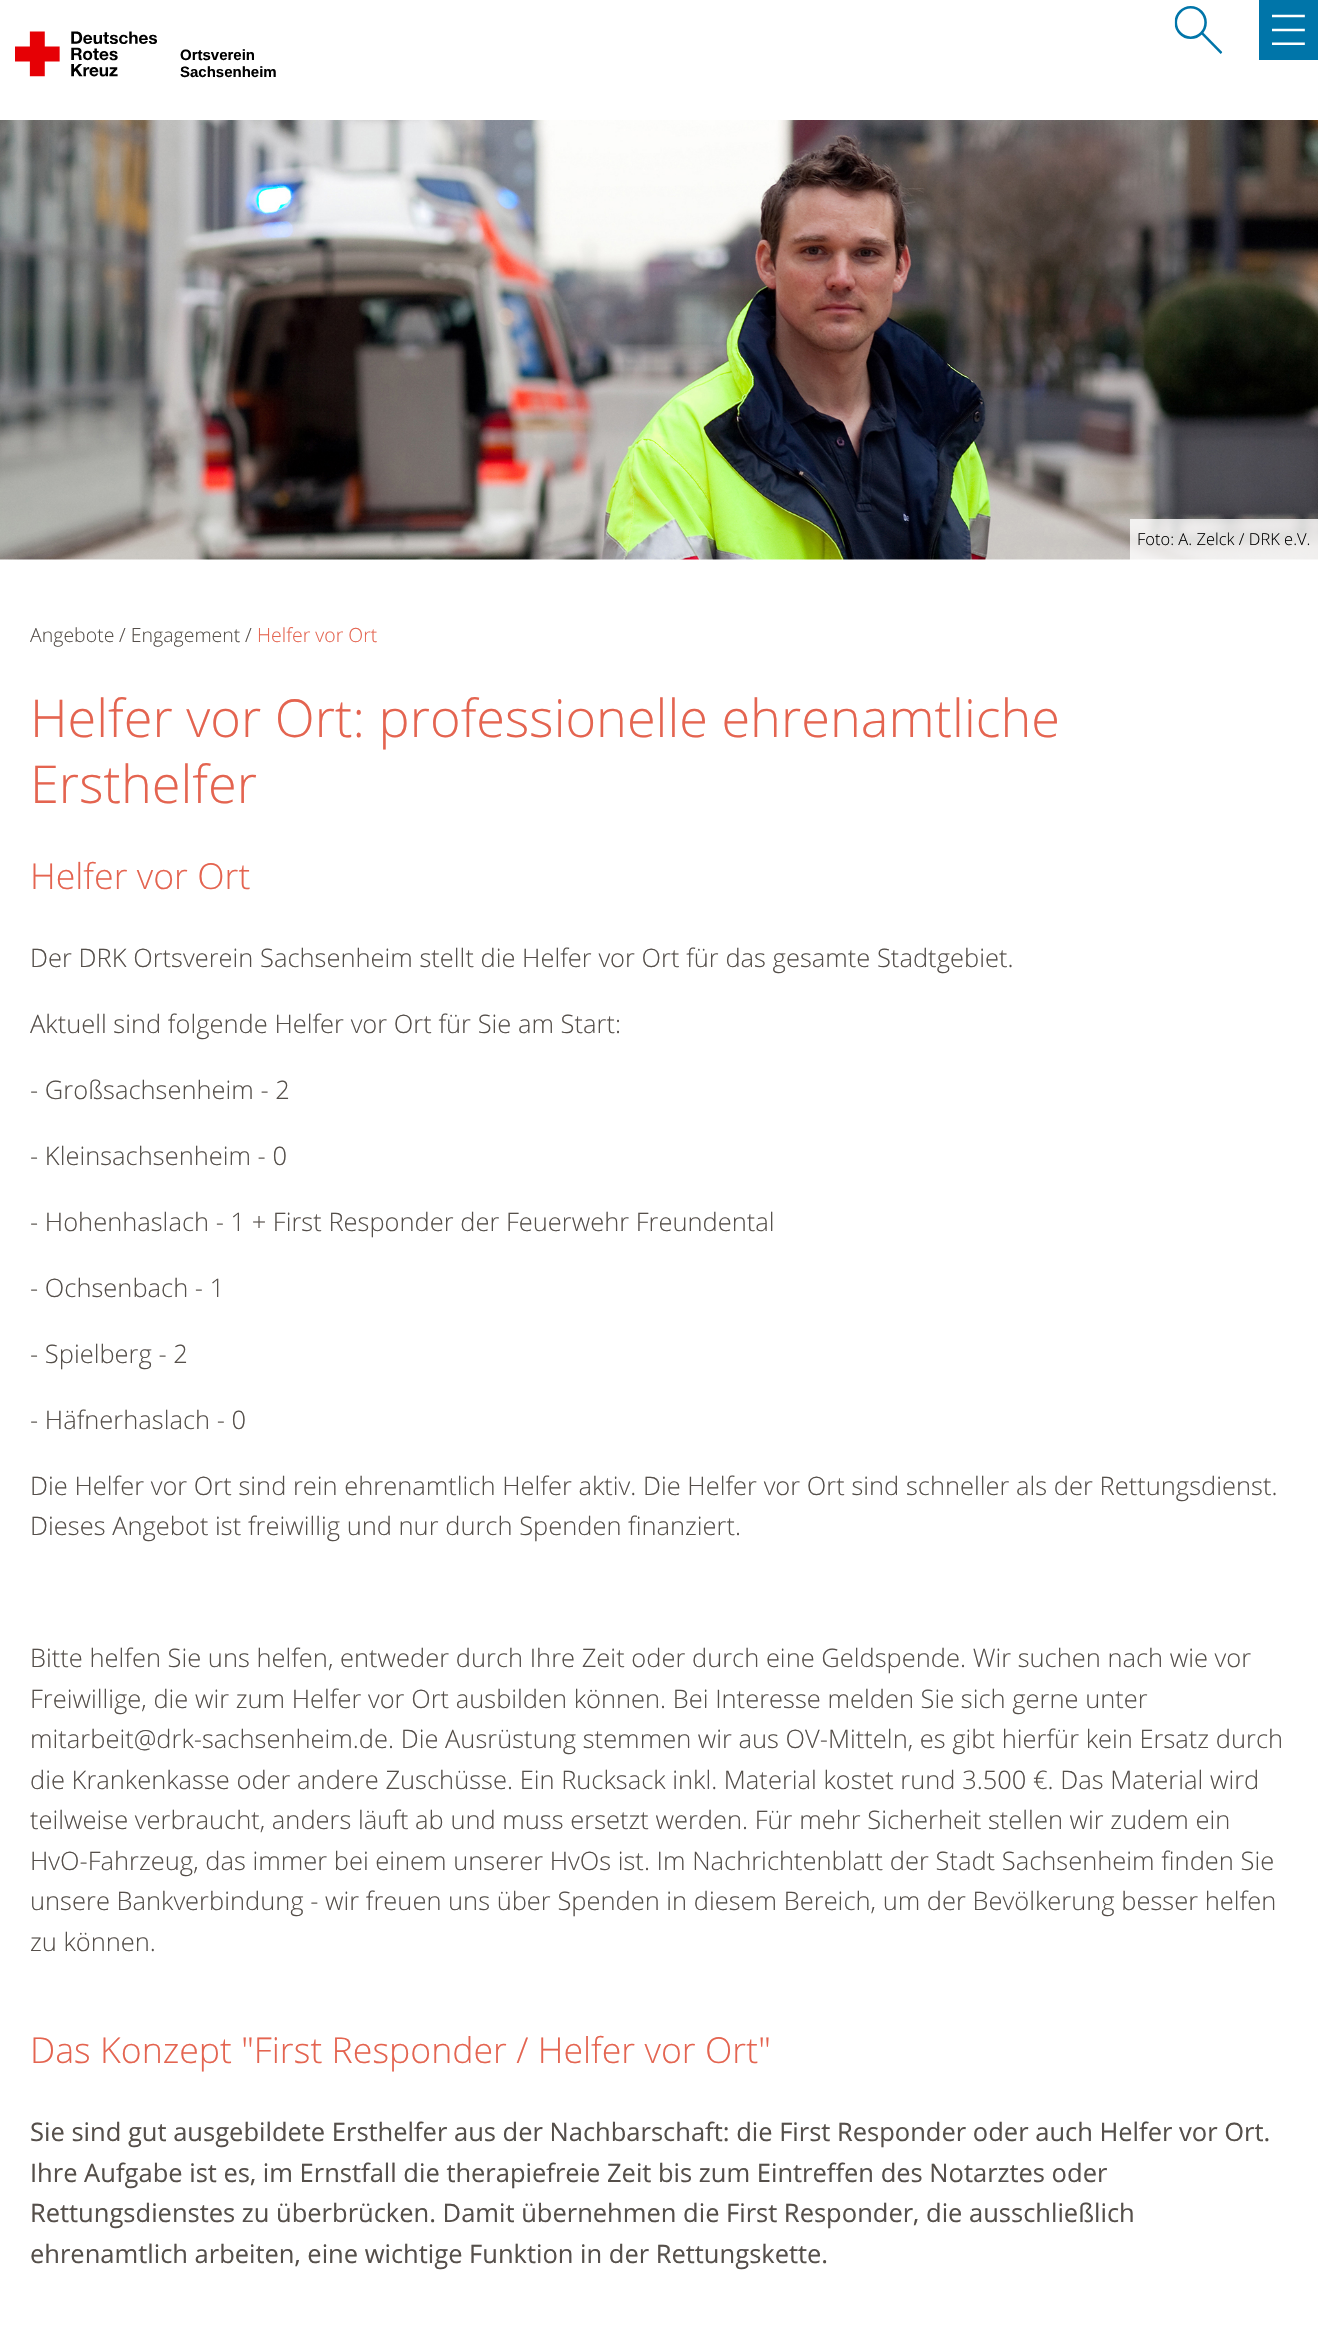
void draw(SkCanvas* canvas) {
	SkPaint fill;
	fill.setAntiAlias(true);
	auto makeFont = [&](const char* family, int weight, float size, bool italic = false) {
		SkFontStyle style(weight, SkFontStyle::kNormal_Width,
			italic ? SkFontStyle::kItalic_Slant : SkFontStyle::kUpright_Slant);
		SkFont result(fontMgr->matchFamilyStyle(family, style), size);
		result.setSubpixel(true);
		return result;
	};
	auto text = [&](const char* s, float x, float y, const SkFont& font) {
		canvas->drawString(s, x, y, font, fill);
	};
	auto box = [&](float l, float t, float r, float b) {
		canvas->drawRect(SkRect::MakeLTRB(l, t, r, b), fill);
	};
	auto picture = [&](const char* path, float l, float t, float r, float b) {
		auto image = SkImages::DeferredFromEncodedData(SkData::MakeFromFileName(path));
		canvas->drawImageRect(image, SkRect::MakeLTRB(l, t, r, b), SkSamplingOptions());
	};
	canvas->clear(0xFFFFFFFF);
	picture("image0.png", 1174, 6, 1223, 54);
	fill.setColor(0xFF0075A9);
	box(1259, 0, 1318, 60);
	picture("image1.png", 1272, 14, 1305, 45);
	picture("image2.png", 15, 31, 157, 77);
	picture("image3.png", 0, 120, 1318, 560);
	fill.setColor(0xCCFFFFFF);
	box(1130, 519, 1318, 560);
	auto font1 = makeFont("Liberation Sans", 700, 15);
	fill.setColor(0xFF000000);
	text("Ortsverein", 180, 60, font1);
	text("Sachsenheim", 180, 77, font1);
	auto font2 = makeFont("Open Sans", 300, 16.5f);
	text("Foto: A. Zelck / DRK e.V.", 1137, 545, font2);
	auto font3 = makeFont("Open Sans", 300, 19.5f);
	fill.setColor(0xFF554F4A);
	text("Angebote", 30, 642, font3);
	text("/ Engagement", 119, 642, font3);
	text("/", 245, 642, font3);
	fill.setColor(0xFFE46450);
	text("Helfer vor Ort", 257, 642, font3);
	auto font4 = makeFont("Open Sans", 300, 52.25f);
	text("Helfer vor Ort: professionelle ehrenamtliche", 30, 737, font4);
	text("Ersthelfer", 30, 803, font4);
	auto font5 = makeFont("Open Sans", 300, 35.7f);
	text("Helfer vor Ort", 30, 889, font5);
	auto font6 = makeFont("Open Sans", 300, 25.5f);
	fill.setColor(0xFF554F4A);
	text("Der DRK Ortsverein Sachsenheim stellt die Helfer vor Ort für das gesamte Stadtgebiet.", 30, 967, font6);
	text("Aktuell sind folgende Helfer vor Ort für Sie am Start:", 30, 1033, font6);
	text("- Großsachsenheim - 2", 30, 1099, font6);
	text("- Kleinsachsenheim - 0", 30, 1165, font6);
	text("- Hohenhaslach - 1 + First Responder der Feuerwehr Freundental", 30, 1231, font6);
	text("- Ochsenbach - 1", 30, 1297, font6);
	text("- Spielberg - 2", 30, 1363, font6);
	text("- Häfnerhaslach - 0", 30, 1429, font6);
	text("Die Helfer vor Ort sind rein ehrenamtlich Helfer aktiv. Die Helfer vor Ort sind schneller als der Rettungsdienst.", 30, 1495, font6);
	text("Dieses Angebot ist freiwillig und nur durch Spenden finanziert.", 30, 1535, font6);
	text("Bitte helfen Sie uns helfen, entweder durch Ihre Zeit oder durch eine Geldspende. Wir suchen nach wie vor", 30, 1667, font6);
	text("Freiwillige, die wir zum Helfer vor Ort ausbilden können. Bei Interesse melden Sie sich gerne unter", 30, 1708, font6);
	text("mitarbeit@drk-sachsenheim.de. Die Ausrüstung stemmen wir aus OV-Mitteln, es gibt hierfür kein Ersatz durch", 30, 1748, font6);
	text("die Krankenkasse oder andere Zuschüsse. Ein Rucksack inkl. Material kostet rund 3.500 €. Das Material wird", 30, 1789, font6);
	text("teilweise verbraucht, anders läuft ab und muss ersetzt werden. Für mehr Sicherheit stellen wir zudem ein", 30, 1829, font6);
	text("HvO-Fahrzeug, das immer bei einem unserer HvOs ist. Im Nachrichtenblatt der Stadt Sachsenheim finden Sie", 30, 1870, font6);
	text("unsere Bankverbindung - wir freuen uns über Spenden in diesem Bereich, um der Bevölkerung besser helfen", 30, 1910, font6);
	text("zu können.", 30, 1951, font6);
	fill.setColor(0xFFE46450);
	text("Das Konzept \"First Responder / Helfer vor Ort\"", 30, 2063, font5);
	auto font7 = makeFont("Open Sans", 400, 25.5f);
	fill.setColor(0xFF554F4A);
	text("Sie sind gut ausgebildete Ersthelfer aus der Nachbarschaft: die First Responder oder auch Helfer vor Ort.", 30, 2141, font7);
	text("Ihre Aufgabe ist es, im Ernstfall die therapiefreie Zeit bis zum Eintreffen des Notarztes oder", 30, 2182, font7);
	text("Rettungsdienstes zu überbrücken. Damit übernehmen die First Responder, die ausschließlich", 30, 2222, font7);
	text("ehrenamtlich arbeiten, eine wichtige Funktion in der Rettungskette.", 30, 2263, font7);
}
